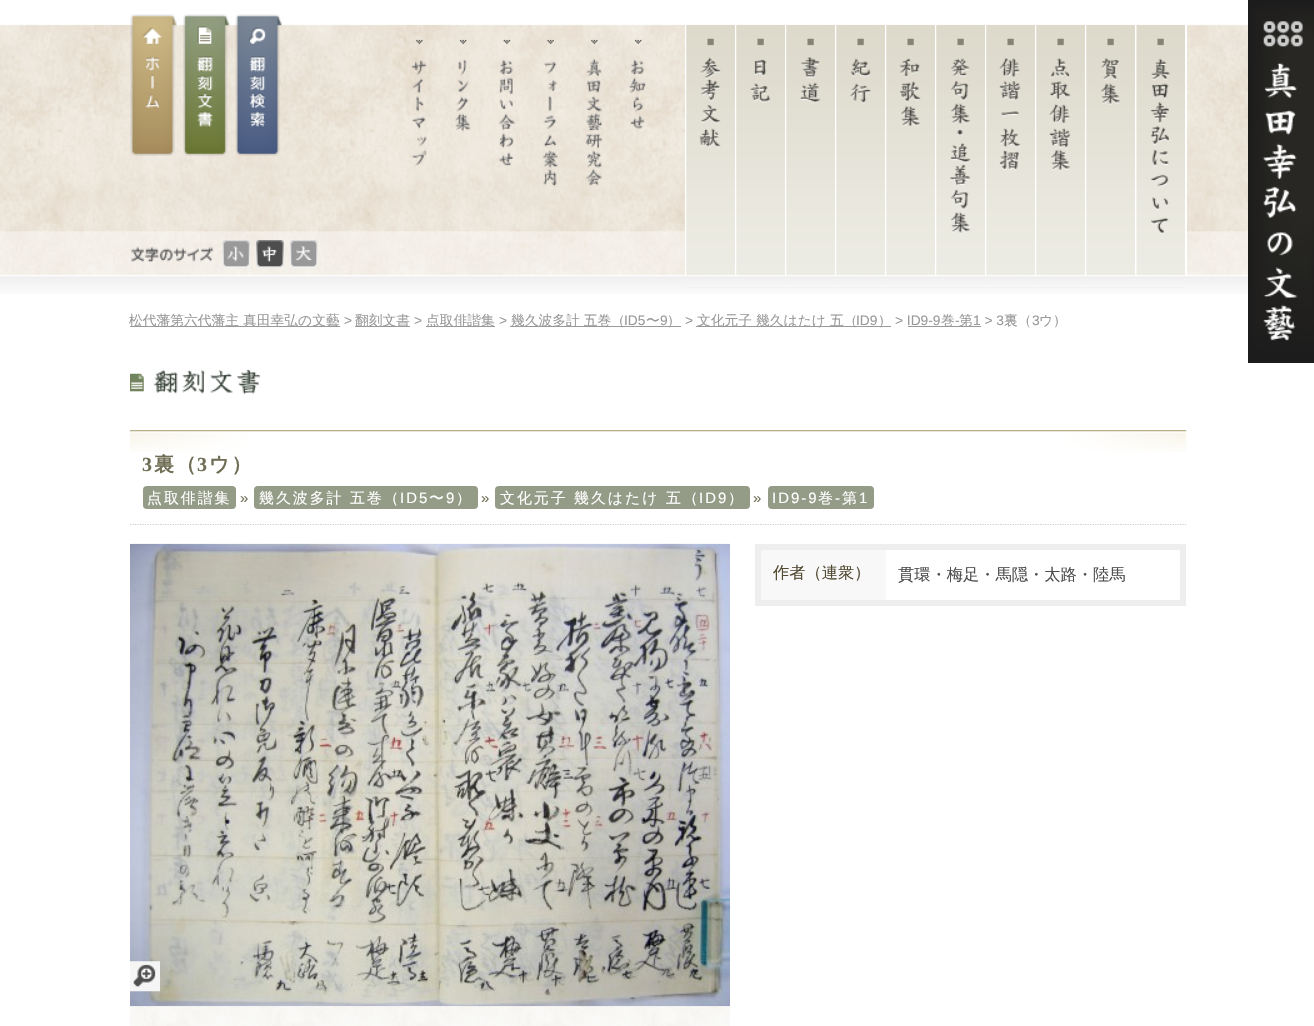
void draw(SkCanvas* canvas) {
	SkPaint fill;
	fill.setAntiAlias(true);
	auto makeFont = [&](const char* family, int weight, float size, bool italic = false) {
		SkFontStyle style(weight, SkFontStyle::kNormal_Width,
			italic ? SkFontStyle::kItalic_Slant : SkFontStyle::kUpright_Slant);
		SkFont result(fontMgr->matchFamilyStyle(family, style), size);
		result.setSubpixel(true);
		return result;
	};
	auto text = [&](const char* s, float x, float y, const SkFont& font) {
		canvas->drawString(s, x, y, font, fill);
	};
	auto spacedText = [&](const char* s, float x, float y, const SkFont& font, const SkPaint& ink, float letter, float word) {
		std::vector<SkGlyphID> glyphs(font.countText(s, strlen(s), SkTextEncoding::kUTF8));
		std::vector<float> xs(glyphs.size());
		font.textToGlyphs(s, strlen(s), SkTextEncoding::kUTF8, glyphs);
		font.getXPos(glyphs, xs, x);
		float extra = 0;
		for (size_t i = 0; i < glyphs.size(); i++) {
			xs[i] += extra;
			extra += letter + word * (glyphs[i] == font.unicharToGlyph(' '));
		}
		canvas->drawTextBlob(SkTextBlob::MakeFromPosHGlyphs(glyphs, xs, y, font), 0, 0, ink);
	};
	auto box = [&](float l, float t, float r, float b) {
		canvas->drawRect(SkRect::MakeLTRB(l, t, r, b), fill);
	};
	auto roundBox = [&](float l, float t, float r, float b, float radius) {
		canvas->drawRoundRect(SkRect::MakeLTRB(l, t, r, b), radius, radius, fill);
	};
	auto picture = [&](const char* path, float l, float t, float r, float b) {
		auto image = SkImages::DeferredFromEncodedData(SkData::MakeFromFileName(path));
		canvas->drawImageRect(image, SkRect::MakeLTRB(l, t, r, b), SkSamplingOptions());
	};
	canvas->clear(0xFFFFFFFF);
	picture("image0.png", 0, 24, 1248, 294);
	picture("image1.png", 130, 14, 177, 156);
	picture("image2.png", 183, 14, 230, 156);
	picture("image3.png", 235, 14, 282, 156);
	picture("image4.png", 411, 39, 427, 167);
	picture("image5.png", 455, 39, 471, 132);
	picture("image6.png", 498, 39, 516, 166);
	picture("image7.png", 542, 39, 558, 187);
	picture("image8.png", 585, 39, 603, 186);
	picture("image9.png", 628, 39, 646, 129);
	fill.setColor(0xFFFFFFFF);
	box(685, 25, 1187, 275);
	picture("image10.png", 686, 25, 735, 288);
	picture("image11.png", 736, 25, 785, 288);
	picture("image12.png", 786, 25, 835, 288);
	picture("image13.png", 836, 25, 885, 288);
	picture("image14.png", 886, 25, 935, 288);
	picture("image15.png", 936, 25, 985, 288);
	picture("image16.png", 986, 25, 1035, 288);
	picture("image17.png", 1036, 25, 1085, 288);
	picture("image18.png", 1086, 25, 1135, 288);
	picture("image19.png", 1136, 25, 1185, 288);
	picture("image20.png", 131, 246, 214, 262);
	picture("image21.png", 222, 240, 250, 268);
	picture("image22.png", 256, 240, 284, 268);
	picture("image23.png", 290, 240, 318, 268);
	picture("image24.png", 1248, 0, 1314, 363);
	fill.setColor(0xFF999999);
	box(130, 326, 340, 327);
	box(355, 326, 410, 327);
	box(426, 326, 495, 327);
	box(510, 326, 681, 327);
	box(696, 326, 891, 327);
	box(908, 326, 981, 327);
	picture("image25.png", 130, 369, 261, 394);
	picture("image26.png", 130, 430, 1187, 452);
	fill.setStyle(SkPaint::kStroke_Style);
	fill.setStrokeWidth(1.2f);
	fill.setColor(0xFFCCCCCC);
	fill.setPathEffect(SkDashPathEffect::Make({{1.25f, 1.25f}}, 0));
	canvas->drawPath(SkPathBuilder().moveTo(130, 524.5f).lineTo(1186, 524.5f).detach(), fill);
	fill.setPathEffect(nullptr);
	fill.setStyle(SkPaint::kFill_Style);
	fill.setColor(0xFF949B87);
	roundBox(143, 486, 236, 509, 4);
	roundBox(254, 486, 478, 509, 4);
	roundBox(495, 486, 750, 509, 4);
	roundBox(768, 486, 874, 509, 4);
	picture("image27.png", 130, 543, 730, 1026);
	picture("image28.png", 130, 543, 730, 1007);
	picture("image29.png", 130, 961, 160, 992);
	fill.setColor(0xFFEEEEEE);
	box(755, 544, 1186, 606);
	fill.setColor(0xFFF8F8F8);
	box(761, 550, 886, 600);
	fill.setColor(0xFFFFFFFF);
	box(886, 550, 1180, 600);
	auto font1 = makeFont("WenQuanYi Zen Hei", 500, 13.75f);
	fill.setColor(0xFF999999);
	text("松代藩第六代藩主 真田幸弘の文藝", 129, 325, font1);
	auto font2 = makeFont("Liberation Sans", 400, 13.75f);
	text(">", 344, 325, font2);
	text("翻刻文書", 355, 325, font1);
	text(">", 414, 325, font2);
	text("点取俳諧集", 426, 325, font1);
	text(">", 499, 325, font2);
	text("幾久波多計 五巻（", 511, 325, font1);
	text("ID5", 624, 325, font2);
	text("〜", 646, 325, font1);
	text("9", 660, 325, font2);
	text("）", 667, 325, font1);
	text(">", 685, 325, font2);
	text("文化元子 幾久はたけ 五（", 697, 325, font1);
	text("ID9", 856, 325, font2);
	text("）", 878, 325, font1);
	text("> ID9-9", 895, 325, font2);
	text("巻", 941, 325, font1);
	text("-", 955, 325, font2);
	text("第", 959, 325, font1);
	text("1 > 3", 973, 325, font2);
	text("裏（", 1004, 325, font1);
	text("3", 1032, 325, font2);
	text("ウ）", 1039, 325, font1);
	auto font3 = makeFont("Liberation Serif", 700, 20);
	fill.setColor(0xFF706E55);
	spacedText("3", 142, 471, font3, fill, 2, 0);
	auto font4 = makeFont("WenQuanYi Zen Hei", 700, 20);
	spacedText("裏（", 154, 471, font4, fill, 2, 0);
	spacedText("3", 197, 471, font3, fill, 2, 0);
	spacedText("ウ）", 209, 471, font4, fill, 2, 0);
	auto font5 = makeFont("WenQuanYi Zen Hei", 500, 14.9f);
	fill.setColor(0xFFFFFFFF);
	spacedText("点取俳諧集", 147, 503, font5, fill, 2, 0);
	auto font6 = makeFont("Liberation Sans", 400, 14.9f);
	fill.setColor(0xFF706E55);
	spacedText("»", 240, 503, font6, fill, 2, 0);
	fill.setColor(0xFFFFFFFF);
	spacedText("幾久波多計 五巻（", 259, 503, font5, fill, 2, 0);
	spacedText("ID5", 400, 503, font6, fill, 2, 0);
	spacedText("〜", 429, 503, font5, fill, 2, 0);
	spacedText("9", 446, 503, font6, fill, 2, 0);
	spacedText("）", 456, 503, font5, fill, 2, 0);
	fill.setColor(0xFF706E55);
	spacedText("»", 481, 503, font6, fill, 2, 0);
	fill.setColor(0xFFFFFFFF);
	spacedText("文化元子 幾久はたけ 五（", 500, 503, font5, fill, 2, 0);
	spacedText("ID9", 699, 503, font6, fill, 2, 0);
	spacedText("）", 728, 503, font5, fill, 2, 0);
	fill.setColor(0xFF706E55);
	spacedText("»", 753, 503, font6, fill, 2, 0);
	fill.setColor(0xFFFFFFFF);
	spacedText("ID9-9", 772, 503, font6, fill, 2, 0);
	spacedText("巻", 818, 503, font5, fill, 2, 0);
	spacedText("-", 835, 503, font6, fill, 2, 0);
	spacedText("第", 842, 503, font5, fill, 2, 0);
	spacedText("1", 859, 503, font6, fill, 2, 0);
	auto font7 = makeFont("WenQuanYi Zen Hei", 500, 16.25f);
	fill.setColor(0xFF514932);
	text("作者（連衆）", 773, 578, font7);
	fill.setColor(0xFF4D4D4D);
	text("貫環・梅足・馬隠・太路・陸馬", 898, 580, font7);
}
